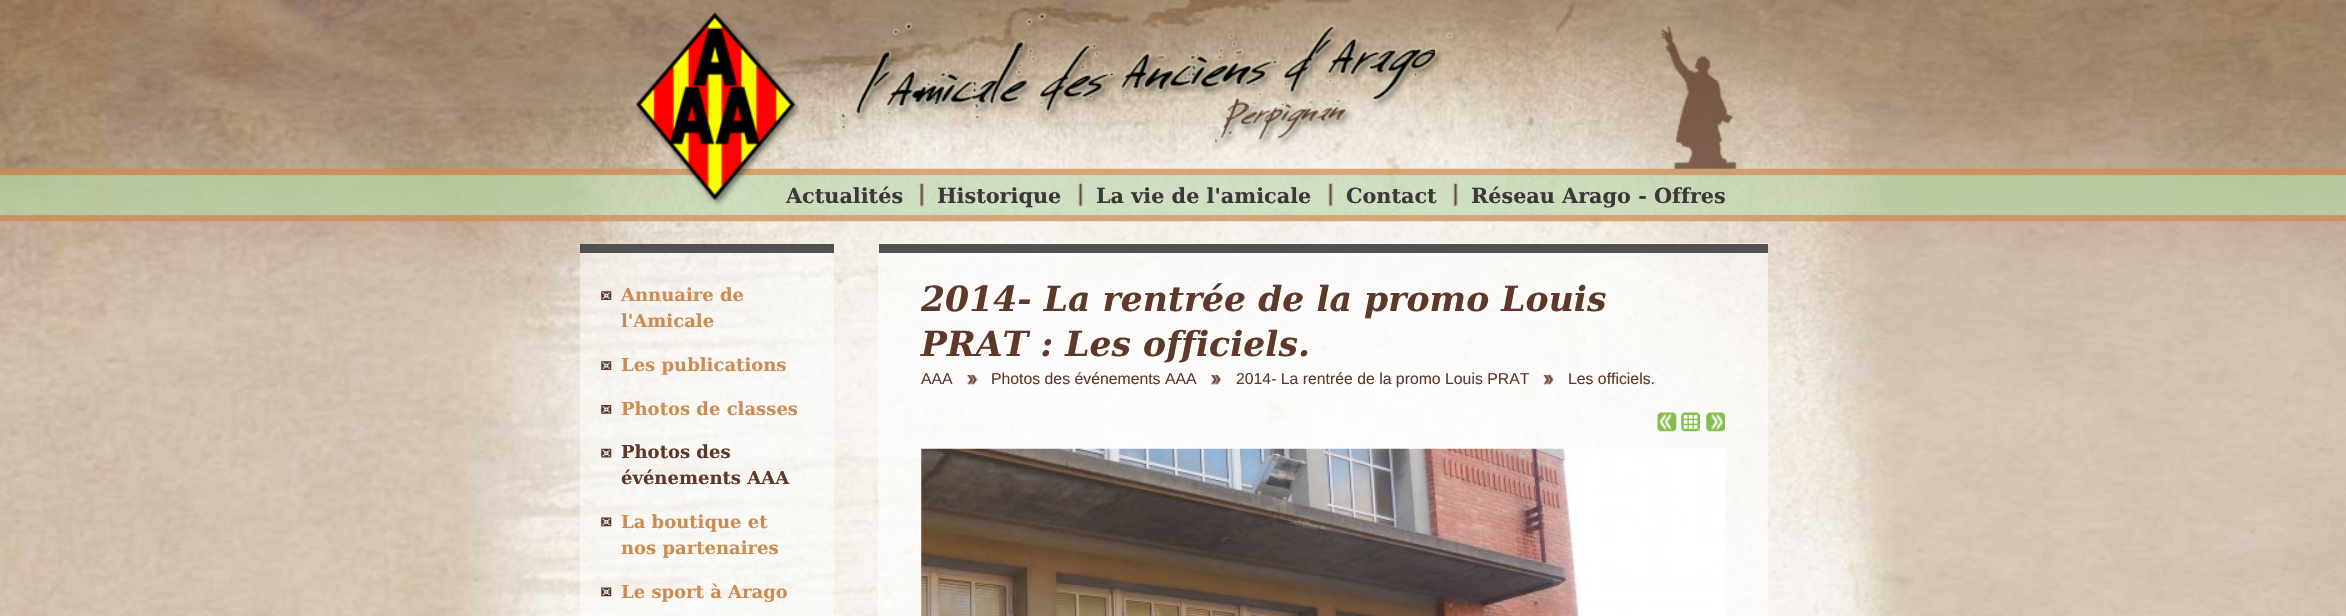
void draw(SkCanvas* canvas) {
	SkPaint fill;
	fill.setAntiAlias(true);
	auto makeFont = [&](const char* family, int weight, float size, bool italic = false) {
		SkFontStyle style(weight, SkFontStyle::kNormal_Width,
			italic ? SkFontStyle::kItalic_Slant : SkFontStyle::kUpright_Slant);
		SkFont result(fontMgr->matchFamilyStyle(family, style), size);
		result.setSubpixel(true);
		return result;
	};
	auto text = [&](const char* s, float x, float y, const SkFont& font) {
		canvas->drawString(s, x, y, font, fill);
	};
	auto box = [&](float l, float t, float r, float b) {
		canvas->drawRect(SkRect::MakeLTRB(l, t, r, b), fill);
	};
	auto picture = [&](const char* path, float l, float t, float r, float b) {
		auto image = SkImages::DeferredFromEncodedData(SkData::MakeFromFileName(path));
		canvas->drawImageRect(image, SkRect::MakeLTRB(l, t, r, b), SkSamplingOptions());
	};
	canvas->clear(0xFFFFFFFF);
	picture("image0.png", 0, 0, 2346, 616);
	picture("image1.png", 0, 168, 2346, 222);
	picture("image2.png", 636, 12, 800, 206);
	picture("image3.png", 840, 12, 1737, 169);
	picture("image4.png", 920, 183, 924, 207);
	picture("image5.png", 1078, 183, 1083, 207);
	picture("image6.png", 1328, 183, 1333, 207);
	picture("image7.png", 1453, 183, 1458, 207);
	fill.setColor(0x80FFFFFF);
	box(580, 253, 834, 616);
	fill.setColor(0xFF515151);
	box(580, 244, 834, 253);
	picture("image8.png", 601, 291, 612, 300);
	picture("image9.png", 601, 361, 612, 370);
	picture("image10.png", 601, 405, 612, 414);
	picture("image11.png", 601, 448, 612, 458);
	picture("image12.png", 601, 517, 612, 527);
	picture("image13.png", 601, 587, 612, 597);
	fill.setColor(0x99FFFFFF);
	box(878, 243, 1768, 616);
	fill.setColor(0xFF515151);
	box(879, 244, 1768, 253);
	picture("image14.png", 967, 375, 978, 385);
	picture("image15.png", 1211, 375, 1222, 385);
	picture("image16.png", 1543, 375, 1554, 385);
	picture("image17.png", 1657, 412, 1677, 432);
	picture("image18.png", 1681, 412, 1700, 432);
	picture("image19.png", 1706, 412, 1725, 432);
	picture("image20.png", 921, 448, 1725, 616);
	auto font1 = makeFont("DejaVu Serif", 700, 20.75f);
	fill.setColor(0xFF393939);
	text("Actualités", 786, 203, font1);
	text("Historique", 937, 203, font1);
	text("La vie de l'amicale", 1096, 203, font1);
	text("Contact", 1346, 203, font1);
	text("Réseau Arago - Offres", 1471, 203, font1);
	auto font2 = makeFont("DejaVu Serif", 700, 18);
	fill.setColor(0xFFCD8C52);
	text("Annuaire de", 621, 301, font2);
	text("l'Amicale", 621, 327, font2);
	text("Les publications", 621, 371, font2);
	text("Photos de classes", 621, 415, font2);
	fill.setColor(0xFF5E3929);
	text("Photos des", 621, 458, font2);
	text("événements AAA", 621, 484, font2);
	fill.setColor(0xFFCD8C52);
	text("La boutique et", 621, 528, font2);
	text("nos partenaires", 621, 554, font2);
	text("Le sport à Arago", 621, 598, font2);
	auto font3 = makeFont("DejaVu Serif", 700, 34.6f, true);
	fill.setColor(0xFF5E3929);
	text("2014- La rentrée de la promo Louis", 921, 311, font3);
	text("PRAT : Les officiels.", 921, 356, font3);
	auto font4 = makeFont("Liberation Sans", 400, 15.8f);
	text("AAA", 921, 384, font4);
	text("Photos des événements AAA", 991, 384, font4);
	text("2014- La rentrée de la promo Louis PRAT", 1236, 384, font4);
	text("Les officiels.", 1568, 384, font4);
}
